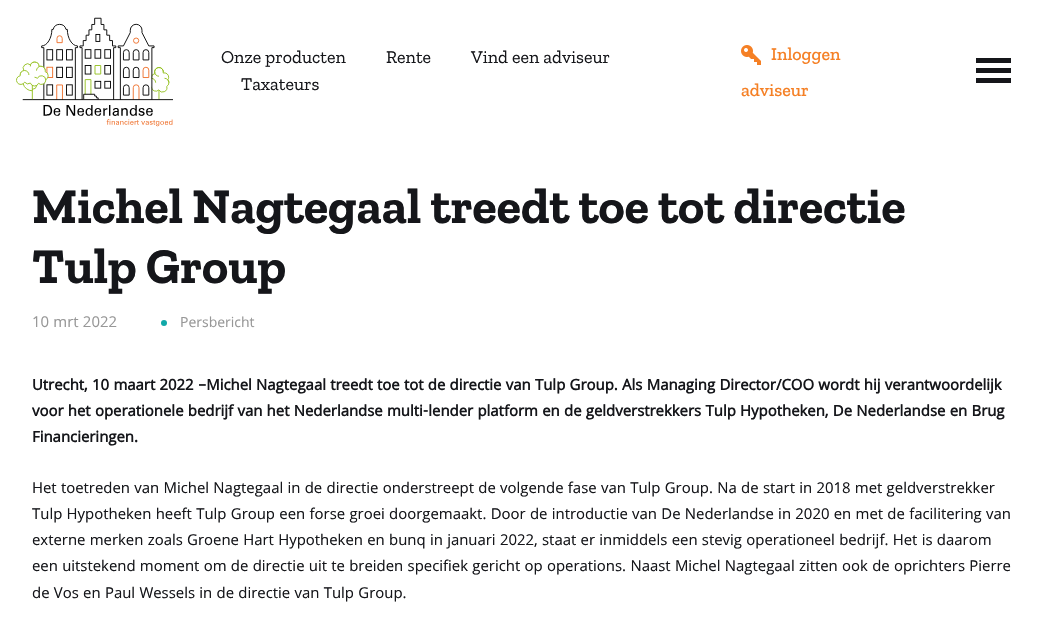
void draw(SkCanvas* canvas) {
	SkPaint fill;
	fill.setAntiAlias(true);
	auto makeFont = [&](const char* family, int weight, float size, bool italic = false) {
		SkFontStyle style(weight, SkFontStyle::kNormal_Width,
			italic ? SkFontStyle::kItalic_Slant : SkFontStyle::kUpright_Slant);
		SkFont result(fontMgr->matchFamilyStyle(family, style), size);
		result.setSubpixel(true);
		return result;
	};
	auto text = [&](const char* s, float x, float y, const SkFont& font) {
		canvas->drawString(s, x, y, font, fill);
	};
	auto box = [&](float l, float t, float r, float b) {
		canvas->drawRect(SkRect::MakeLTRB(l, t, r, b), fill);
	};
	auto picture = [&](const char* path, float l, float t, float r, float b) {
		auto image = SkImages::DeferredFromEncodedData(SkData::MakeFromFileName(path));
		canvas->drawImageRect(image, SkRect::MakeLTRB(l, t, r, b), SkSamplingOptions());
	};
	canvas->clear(0xFFFFFFFF);
	picture("image0.png", 16, 17, 173, 127);
	picture("image1.png", 741, 45, 761, 65);
	fill.setColor(0xFF15161A);
	box(976, 68, 1011, 73);
	box(976, 58, 1011, 63);
	box(976, 78, 1011, 83);
	fill.setColor(0xFF10A8A8);
	canvas->drawCircle(164, 323, 3, fill);
	auto font1 = makeFont("Zilla Slab", 400, 18);
	fill.setColor(0xFF15161A);
	text("Onze producten", 221, 63, font1);
	text("Rente", 386, 63, font1);
	text("Vind een adviseur", 471, 63, font1);
	text("Taxateurs", 241, 90, font1);
	auto font2 = makeFont("Zilla Slab", 500, 18);
	fill.setColor(0xFFF58025);
	text("Inloggen", 771, 60, font2);
	text("adviseur", 741, 96, font2);
	auto font3 = makeFont("Zilla Slab", 700, 50);
	fill.setColor(0xFF15161A);
	text("Michel Nagtegaal treedt toe tot directie", 32, 223, font3);
	text("Tulp Group", 32, 283, font3);
	auto font4 = makeFont("Khula", 400, 16);
	fill.setColor(0xFF979797);
	text("10 mrt 2022", 32, 327, font4);
	auto font5 = makeFont("Khula", 400, 15);
	text("Persbericht", 180, 327, font5);
	auto font6 = makeFont("Khula", 700, 16);
	fill.setColor(0xFF15161A);
	text("Utrecht, 10 maart 2022 –Michel Nagtegaal treedt toe tot de directie van Tulp Group. Als Managing Director/COO wordt hij verantwoordelijk", 32, 390, font6);
	text("voor het operationele bedrijf van het Nederlandse multi-lender platform en de geldverstrekkers Tulp Hypotheken, De Nederlandse en Brug", 32, 416, font6);
	text("Financieringen.", 32, 442, font6);
	text("Het toetreden van Michel Nagtegaal in de directie onderstreept de volgende fase van Tulp Group. Na de start in 2018 met geldverstrekker", 32, 493, font4);
	text("Tulp Hypotheken heeft Tulp Group een forse groei doorgemaakt. Door de introductie van De Nederlandse in 2020 en met de facilitering van", 32, 519, font4);
	text("externe merken zoals Groene Hart Hypotheken en bunq in januari 2022, staat er inmiddels een stevig operationeel bedrijf. Het is daarom", 32, 545, font4);
	text("een uitstekend moment om de directie uit te breiden specifiek gericht op operations. Naast Michel Nagtegaal zitten ook de oprichters Pierre", 32, 571, font4);
	text("de Vos en Paul Wessels in de directie van Tulp Group.", 32, 598, font4);
}
